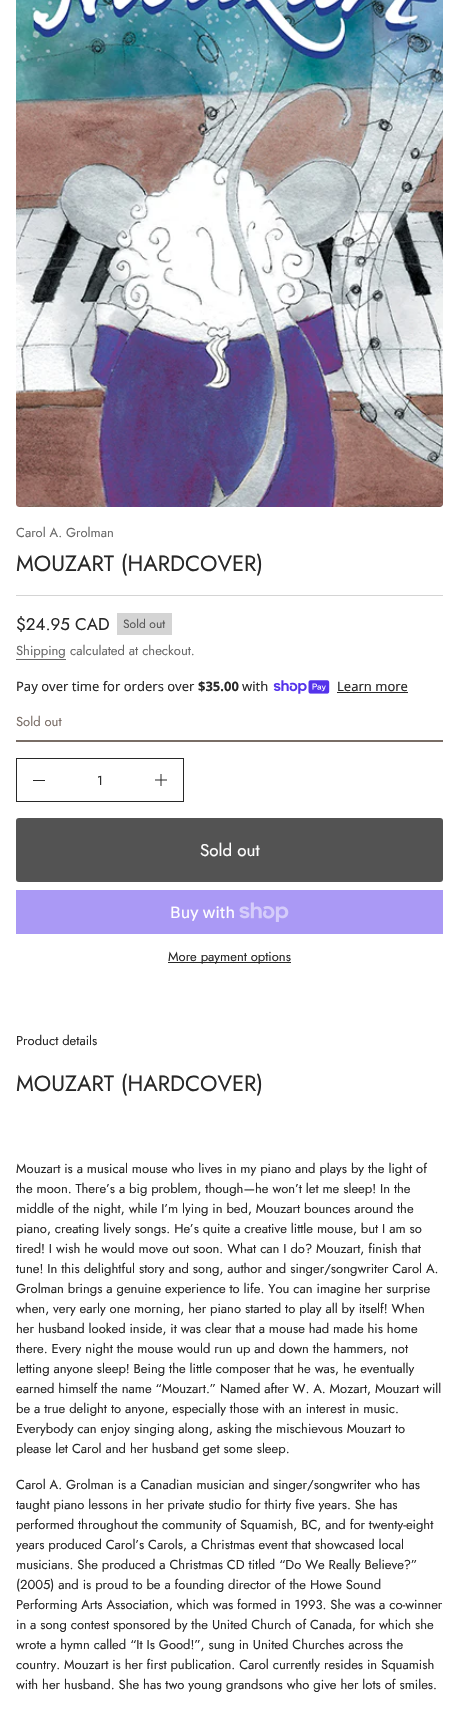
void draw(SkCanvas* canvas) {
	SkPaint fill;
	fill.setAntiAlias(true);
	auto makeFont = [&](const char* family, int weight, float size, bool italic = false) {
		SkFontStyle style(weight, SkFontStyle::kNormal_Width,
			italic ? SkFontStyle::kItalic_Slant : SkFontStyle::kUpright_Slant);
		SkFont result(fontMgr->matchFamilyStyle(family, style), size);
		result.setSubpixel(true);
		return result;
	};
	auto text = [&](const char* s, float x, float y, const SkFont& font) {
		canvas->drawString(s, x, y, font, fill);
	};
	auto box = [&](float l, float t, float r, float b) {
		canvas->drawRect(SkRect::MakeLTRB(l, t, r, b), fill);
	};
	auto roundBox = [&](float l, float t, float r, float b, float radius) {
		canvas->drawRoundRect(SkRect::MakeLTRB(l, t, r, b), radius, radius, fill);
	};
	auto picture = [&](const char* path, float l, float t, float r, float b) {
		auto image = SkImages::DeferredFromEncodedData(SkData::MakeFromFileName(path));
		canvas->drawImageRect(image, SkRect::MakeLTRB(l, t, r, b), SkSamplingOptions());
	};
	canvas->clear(0xFFFFFFFF);
	picture("image0.png", 16, 0, 443, 507);
	fill.setColor(0xFFD4D4D4);
	box(16, 595, 443, 596);
	box(117, 613, 172, 635);
	fill.setColor(0xFF696969);
	box(16, 659, 66, 660);
	picture("image1.png", 273, 680, 330, 694);
	fill.setColor(0xFF282828);
	box(337, 692, 408, 693);
	fill.setColor(0xFF796D66);
	box(16, 740, 443, 742);
	fill.setStyle(SkPaint::kStroke_Style);
	fill.setStrokeWidth(1);
	fill.setColor(0xFF282828);
	canvas->drawRect(SkRect::MakeLTRB(16.5f, 758.5f, 183.5f, 801.5f), fill);
	fill.setStyle(SkPaint::kFill_Style);
	box(33, 780, 45, 781);
	picture("image2.png", 155, 774, 167, 786);
	fill.setColor(0xFF535353);
	roundBox(16, 818, 443, 882, 3);
	fill.setColor(0xFFAA99F5);
	box(16, 890, 443, 934);
	picture("image3.png", 239, 902, 289, 922);
	fill.setColor(0xFF282828);
	box(168, 962, 291, 963);
	auto font1 = makeFont("Jost", 400, 13);
	fill.setColor(0xFF696969);
	text("Carol A. Grolman", 16, 537, font1);
	auto font2 = makeFont("Jost", 400, 22);
	fill.setColor(0xFF282828);
	text("MOUZART (HARDCOVER)", 16, 571, font2);
	auto font3 = makeFont("Jost", 400, 17);
	text("$24.95 CAD", 16, 630, font3);
	auto font4 = makeFont("Jost", 400, 12);
	fill.setColor(0xFF585858);
	text("Sold out", 123, 628, font4);
	fill.setColor(0xFF696969);
	text("Shipping", 16, 655, font1);
	text("calculated at checkout.", 70, 655, font1);
	auto font5 = makeFont("Noto Sans", 400, 13);
	fill.setColor(0xFF282828);
	text("Pay over time for orders over", 16, 691, font5);
	auto font6 = makeFont("Noto Sans", 700, 13);
	text("$35.00", 198, 691, font6);
	text("with", 242, 691, font5);
	text("Learn more", 337, 691, font5);
	fill.setColor(0xFF796D66);
	text("Sold out", 16, 726, font1);
	fill.setColor(0xFF282828);
	text("1", 97, 785, font1);
	fill.setColor(0xFFFFFFFF);
	text("Sold out", 200, 856, font3);
	auto font7 = makeFont("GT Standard", 400, 16);
	text("Buy with", 170, 918, font7);
	fill.setColor(0xFF282828);
	text("More payment options", 168, 961, font1);
	text("Product details", 16, 1045, font1);
	text("MOUZART (HARDCOVER)", 16, 1091, font2);
	text("Mouzart is a musical mouse who lives in my piano and plays by the light of", 16, 1173, font1);
	text("the moon. There’s a big problem, though—he won’t let me sleep! In the", 16, 1193, font1);
	text("middle of the night, while I’m lying in bed, Mouzart bounces around the", 16, 1213, font1);
	text("piano, creating lively songs. He’s quite a creative little mouse, but I am so", 16, 1233, font1);
	text("tired! I wish he would move out soon. What can I do? Mouzart, finish that", 16, 1253, font1);
	text("tune! In this delightful story and song, author and singer/songwriter Carol A.", 16, 1273, font1);
	text("Grolman brings a genuine experience to life. You can imagine her surprise", 16, 1293, font1);
	text("when, very early one morning, her piano started to play all by itself! When", 16, 1313, font1);
	text("her husband looked inside, it was clear that a mouse had made his home", 16, 1333, font1);
	text("there. Every night the mouse would run up and down the hammers, not", 16, 1353, font1);
	text("letting anyone sleep! Being the little composer that he was, he eventually", 16, 1373, font1);
	text("earned himself the name “Mouzart.” Named after W. A. Mozart, Mouzart will", 16, 1393, font1);
	text("be a true delight to anyone, especially those with an interest in music.", 16, 1413, font1);
	text("Everybody can enjoy singing along, asking the mischievous Mouzart to", 16, 1433, font1);
	text("please let Carol and her husband get some sleep.", 16, 1453, font1);
	text("Carol A. Grolman is a Canadian musician and singer/songwriter who has", 16, 1489, font1);
	text("taught piano lessons in her private studio for thirty five years. She has", 16, 1509, font1);
	text("performed throughout the community of Squamish, BC, and for twenty-eight", 16, 1529, font1);
	text("years produced Carol’s Carols, a Christmas event that showcased local", 16, 1549, font1);
	text("musicians. She produced a Christmas CD titled “Do We Really Believe?”", 16, 1569, font1);
	text("(2005) and is proud to be a founding director of the Howe Sound", 16, 1589, font1);
	text("Performing Arts Association, which was formed in 1993. She was a co-winner", 16, 1609, font1);
	text("in a song contest sponsored by the United Church of Canada, for which she", 16, 1629, font1);
	text("wrote a hymn called “It Is Good!”, sung in United Churches across the", 16, 1649, font1);
	text("country. Mouzart is her first publication. Carol currently resides in Squamish", 16, 1669, font1);
	text("with her husband. She has two young grandsons who give her lots of smiles.", 16, 1689, font1);
}
